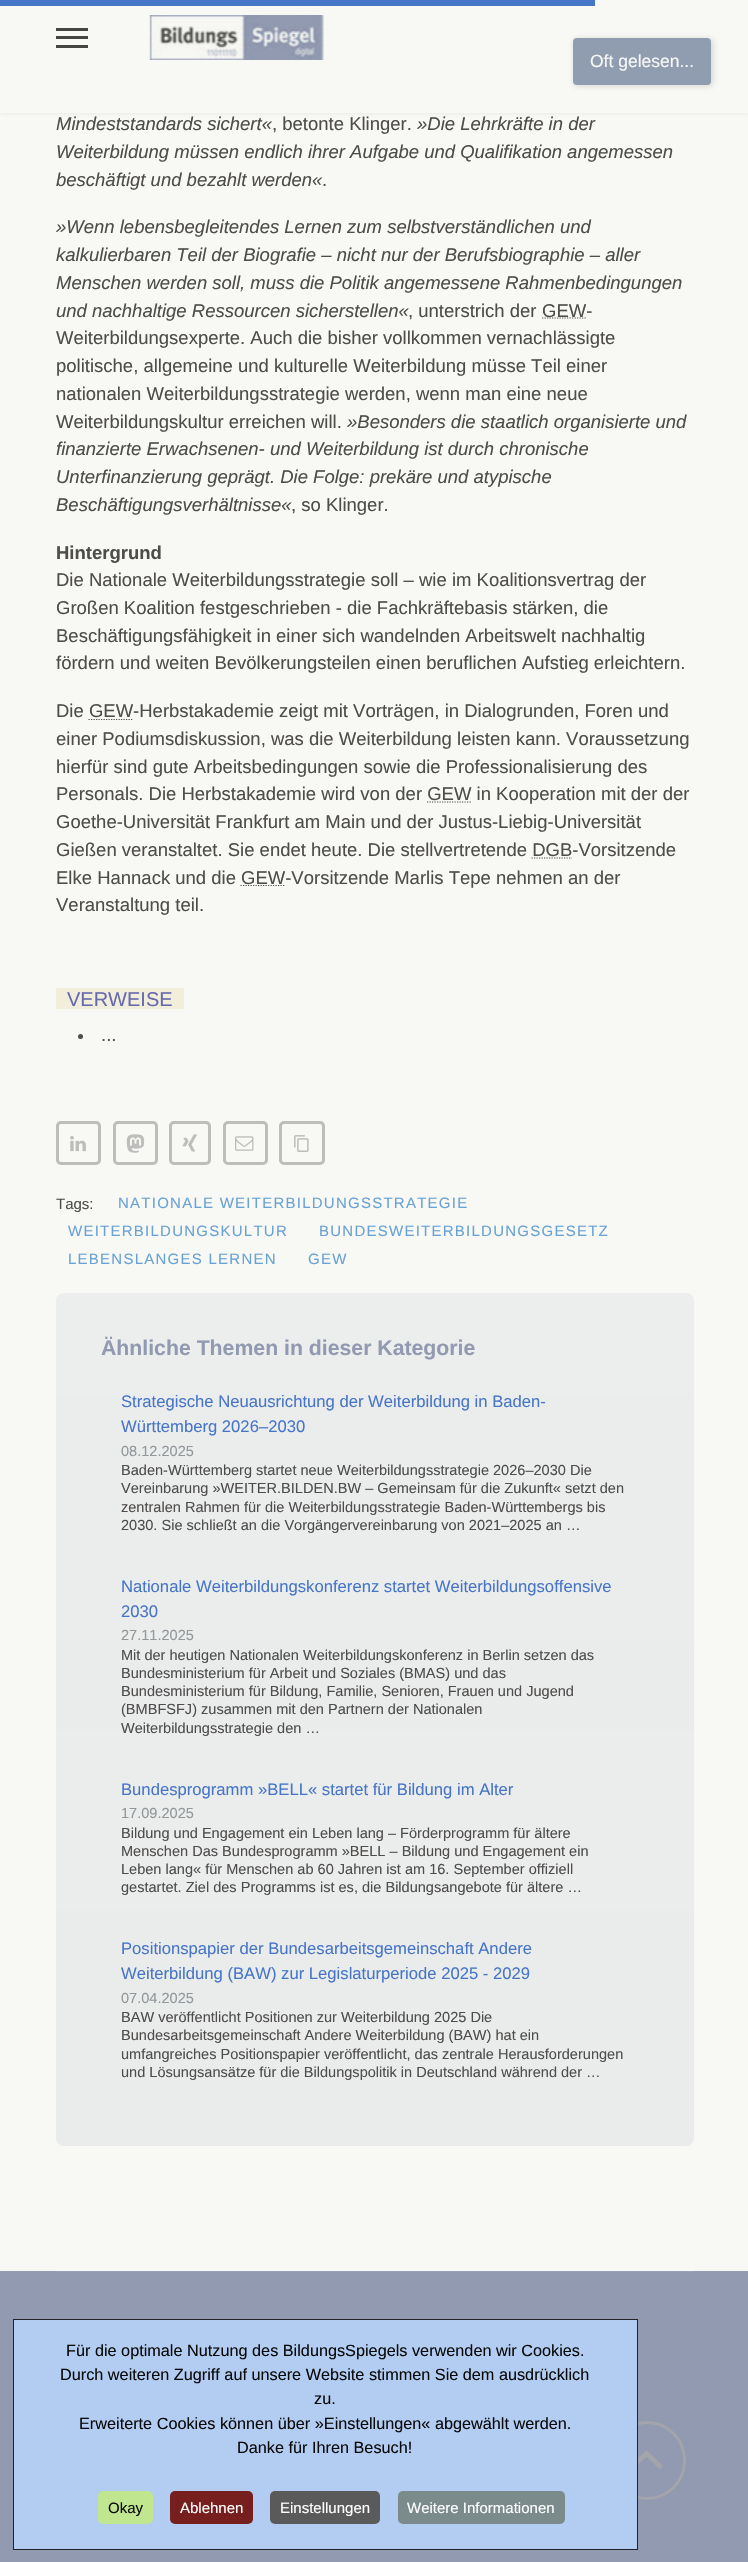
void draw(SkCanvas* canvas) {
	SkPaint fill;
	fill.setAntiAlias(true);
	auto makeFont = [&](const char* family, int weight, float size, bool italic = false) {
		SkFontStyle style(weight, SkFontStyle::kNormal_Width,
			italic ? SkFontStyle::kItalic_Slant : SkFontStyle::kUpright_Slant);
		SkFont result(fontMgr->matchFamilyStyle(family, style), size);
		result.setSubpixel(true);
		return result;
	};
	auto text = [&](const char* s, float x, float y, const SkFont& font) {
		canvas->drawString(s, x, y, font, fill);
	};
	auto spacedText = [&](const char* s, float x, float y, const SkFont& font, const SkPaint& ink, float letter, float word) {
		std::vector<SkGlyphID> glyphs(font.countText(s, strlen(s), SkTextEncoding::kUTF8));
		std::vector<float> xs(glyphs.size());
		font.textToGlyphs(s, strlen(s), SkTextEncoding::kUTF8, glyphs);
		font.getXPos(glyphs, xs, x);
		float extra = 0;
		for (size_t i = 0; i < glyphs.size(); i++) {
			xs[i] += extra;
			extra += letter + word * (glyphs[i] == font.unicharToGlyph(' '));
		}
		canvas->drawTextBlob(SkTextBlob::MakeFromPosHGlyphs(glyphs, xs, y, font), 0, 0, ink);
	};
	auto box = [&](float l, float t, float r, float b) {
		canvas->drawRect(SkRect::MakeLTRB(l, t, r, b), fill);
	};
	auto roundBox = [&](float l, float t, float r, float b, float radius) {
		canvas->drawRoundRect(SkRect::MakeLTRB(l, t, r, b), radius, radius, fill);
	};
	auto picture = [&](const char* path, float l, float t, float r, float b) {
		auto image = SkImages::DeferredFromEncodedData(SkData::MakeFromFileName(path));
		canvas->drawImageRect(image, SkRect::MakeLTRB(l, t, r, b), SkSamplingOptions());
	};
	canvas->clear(0xFFF8F8F5);
	fill.setColor(0x1A454542);
	fill.setMaskFilter(SkMaskFilter::MakeBlur(kNormal_SkBlurStyle, 2.5f));
	canvas->drawRect(SkRect::MakeLTRB(0, 0, 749, 113), fill);
	fill.setMaskFilter(nullptr);
	fill.setColor(0xFFF8F8F5);
	box(0, 0, 748, 113);
	fill.setColor(0xFF4775C8);
	box(0, 0, 595, 6);
	fill.setColor(0x33454542);
	fill.setMaskFilter(SkMaskFilter::MakeBlur(kNormal_SkBlurStyle, 3));
	canvas->drawRoundRect(SkRect::MakeLTRB(574, 39, 713, 86), 4, 4, fill);
	fill.setMaskFilter(nullptr);
	fill.setColor(0xFF909DB1);
	roundBox(573, 38, 711, 85, 4);
	fill.setColor(0xFF454542);
	box(56, 28, 88, 31);
	box(56, 36, 88, 39);
	box(56, 45, 88, 48);
	picture("image0.png", 149, 15, 324, 60);
	fill.setStyle(SkPaint::kStroke_Style);
	fill.setStrokeWidth(1.2f);
	fill.setColor(0xFF4E4D4B);
	fill.setPathEffect(SkDashPathEffect::Make({{1.25f, 1.25f}}, 0));
	canvas->drawPath(SkPathBuilder().moveTo(542, 318).lineTo(586, 318).detach(), fill);
	fill.setPathEffect(nullptr);
	fill.setPathEffect(SkDashPathEffect::Make({{1.25f, 1.25f}}, 0));
	canvas->drawPath(SkPathBuilder().moveTo(88.5f, 719.5f).lineTo(132.5f, 719.5f).detach(), fill);
	fill.setPathEffect(nullptr);
	fill.setPathEffect(SkDashPathEffect::Make({{1.25f, 1.25f}}, 0));
	canvas->drawPath(SkPathBuilder().moveTo(427, 802).lineTo(471, 802).detach(), fill);
	fill.setPathEffect(nullptr);
	fill.setPathEffect(SkDashPathEffect::Make({{1.25f, 1.25f}}, 0));
	canvas->drawPath(SkPathBuilder().moveTo(531.5f, 858).lineTo(572, 858).detach(), fill);
	fill.setPathEffect(nullptr);
	fill.setPathEffect(SkDashPathEffect::Make({{1.25f, 1.25f}}, 0));
	canvas->drawPath(SkPathBuilder().moveTo(240.5f, 885.5f).lineTo(285, 885.5f).detach(), fill);
	fill.setPathEffect(nullptr);
	fill.setStyle(SkPaint::kFill_Style);
	fill.setColor(0xFFF1EEDC);
	box(56, 988, 184, 1009);
	fill.setColor(0xFF4E4D4B);
	canvas->drawCircle(80.5f, 1036.5f, 2.5f, fill);
	fill.setStyle(SkPaint::kStroke_Style);
	fill.setStrokeWidth(3);
	fill.setColor(0xFFBDBDBB);
	canvas->drawRoundRect(SkRect::MakeLTRB(57.5f, 1122.5f, 99.5f, 1163.5f), 3.5f, 3.5f, fill);
	picture("image1.png", 70, 1136, 86, 1152);
	canvas->drawRoundRect(SkRect::MakeLTRB(114.5f, 1122.5f, 156.5f, 1163.5f), 3.5f, 3.5f, fill);
	picture("image2.png", 126, 1134, 145, 1153);
	canvas->drawRoundRect(SkRect::MakeLTRB(170.5f, 1122.5f, 209.5f, 1163.5f), 3.5f, 3.5f, fill);
	picture("image3.png", 182, 1134, 197, 1152);
	canvas->drawRoundRect(SkRect::MakeLTRB(224.5f, 1122.5f, 266.5f, 1163.5f), 3.5f, 3.5f, fill);
	picture("image4.png", 235, 1136, 254, 1151);
	canvas->drawRoundRect(SkRect::MakeLTRB(280.5f, 1122.5f, 323.5f, 1163.5f), 3.5f, 3.5f, fill);
	picture("image5.png", 294, 1135, 309, 1152);
	fill.setStyle(SkPaint::kFill_Style);
	fill.setColor(0xFFEAECEC);
	roundBox(56, 1293, 694, 2146, 8);
	{
		const SkColor colors[] = {0x26F8F8F5, 0x00F8F8F5};
		const float stops[] = {0, 1};
		const SkPoint ends[] = {{375, 1293}, {375, 2146}};
		fill.setShader(SkGradientShader::MakeLinear(ends, colors, stops, 2, SkTileMode::kClamp));
		fill.setAlpha(255);
	}
	roundBox(56, 1293, 694, 2146, 8);
	fill.setShader(nullptr);
	fill.setColor(0xFF919AB0);
	box(0, 2271, 748, 2562);
	fill.setColor(0xFF9BA3B7);
	box(56, 2271, 694, 2272);
	fill.setStyle(SkPaint::kStroke_Style);
	fill.setColor(0xFFA3A4AC);
	canvas->drawRoundRect(SkRect::MakeLTRB(609.5f, 2422.5f, 684.5f, 2498.5f), 37.5f, 37.5f, fill);
	fill.setStyle(SkPaint::kFill_Style);
	fill.setColor(0xFFB3CCF2);
	canvas->drawRect(SkRect::MakeLTRB(13.5f, 2319.5f, 637.5f, 2549.5f), fill);
	fill.setStyle(SkPaint::kStroke_Style);
	fill.setStrokeWidth(1);
	fill.setColor(0xFF202226);
	canvas->drawRect(SkRect::MakeLTRB(13.5f, 2319.5f, 637.5f, 2549.5f), fill);
	fill.setStyle(SkPaint::kFill_Style);
	fill.setColor(0xFFC0E68F);
	roundBox(98, 2491, 153, 2524, 5);
	fill.setColor(0xFF771F1F);
	roundBox(170, 2491, 253, 2524, 5);
	fill.setColor(0xFF5A5A5A);
	roundBox(270, 2491, 380, 2524, 5);
	fill.setColor(0xFF7B8A8B);
	roundBox(398, 2491, 565, 2524, 5);
	picture("image6.png", 638, 2450, 663, 2469);
	auto font1 = makeFont("Liberation Sans", 400, 17.5f);
	fill.setColor(0xFFF8F8F5);
	text("Oft gelesen...", 590, 67, font1);
	auto font2 = makeFont("Liberation Sans", 400, 18.5f, true);
	fill.setColor(0xFF4E4D4B);
	text("Mindeststandards sichert«", 56, 130, font2);
	auto font3 = makeFont("Liberation Sans", 400, 18.5f);
	text(", betonte Klinger.", 272, 130, font3);
	text("»Die Lehrkräfte in der", 417, 130, font2);
	text("Weiterbildung müssen endlich ihrer Aufgabe und Qualifikation angemessen", 56, 158, font2);
	text("beschäftigt und bezahlt werden«", 56, 186, font2);
	text(".", 322, 186, font3);
	text("»Wenn lebensbegleitendes Lernen zum selbstverständlichen und", 56, 233, font2);
	text("kalkulierbaren Teil der Biografie – nicht nur der Berufsbiographie – aller", 56, 261, font2);
	text("Menschen werden soll, muss die Politik angemessene Rahmenbedingungen", 56, 289, font2);
	text("und nachhaltige Ressourcen sicherstellen«", 56, 317, font2);
	text(", unterstrich der", 408, 317, font3);
	text("GEW-", 542, 317, font3);
	text("Weiterbildungsexperte. Auch die bisher vollkommen vernachlässigte", 56, 344, font3);
	text("politische, allgemeine und kulturelle Weiterbildung müsse Teil einer", 56, 372, font3);
	text("nationalen Weiterbildungsstrategie werden, wenn man eine neue", 56, 400, font3);
	text("Weiterbildungskultur erreichen will.", 56, 428, font3);
	text("»Besonders die staatlich organisierte und", 347, 428, font2);
	text("finanzierte Erwachsenen- und Weiterbildung ist durch chronische", 56, 455, font2);
	text("Unterfinanzierung geprägt. Die Folge: prekäre und atypische", 56, 483, font2);
	text("Beschäftigungsverhältnisse«", 56, 511, font2);
	text(", so Klinger.", 291, 511, font3);
	auto font4 = makeFont("Liberation Sans", 700, 18.5f);
	text("Hintergrund", 56, 559, font4);
	text("Die Nationale Weiterbildungsstrategie soll – wie im Koalitionsvertrag der", 56, 586, font3);
	text("Großen Koalition festgeschrieben - die Fachkräftebasis stärken, die", 56, 614, font3);
	text("Beschäftigungsfähigkeit in einer sich wandelnden Arbeitswelt nachhaltig", 56, 642, font3);
	text("fördern und weiten Bevölkerungsteilen einen beruflichen Aufstieg erleichtern.", 56, 669, font3);
	text("Die GEW-Herbstakademie zeigt mit Vorträgen, in Dialogrunden, Foren und", 56, 717, font3);
	text("einer Podiumsdiskussion, was die Weiterbildung leisten kann. Voraussetzung", 56, 745, font3);
	text("hierfür sind gute Arbeitsbedingungen sowie die Professionalisierung des", 56, 773, font3);
	text("Personals. Die Herbstakademie wird von der GEW in Kooperation mit der der", 56, 800, font3);
	text("Goethe-Universität Frankfurt am Main und der Justus-Liebig-Universität", 56, 828, font3);
	text("Gießen veranstaltet. Sie endet heute. Die stellvertretende DGB-Vorsitzende", 56, 856, font3);
	text("Elke Hannack und die", 56, 884, font3);
	text("GEW-Vorsitzende Marlis Tepe nehmen an der", 241, 884, font3);
	text("Veranstaltung teil.", 56, 911, font3);
	auto font5 = makeFont("Liberation Sans", 400, 20);
	fill.setColor(0xFF6969AD);
	text("VERWEISE", 67, 1006, font5);
	fill.setColor(0xFF4E4D4B);
	text("...", 101, 1041, font3);
	auto font6 = makeFont("Liberation Sans", 400, 15);
	text("Tags:", 56, 1209, font6);
	fill.setColor(0xFF69A2D4);
	spacedText("NATIONALE WEITERBILDUNGSSTRATEGIE", 118, 1208, font6, fill, 1.25f, 0);
	spacedText("WEITERBILDUNGSKULTUR", 68, 1236, font6, fill, 1.25f, 0);
	spacedText("BUNDESWEITERBILDUNGSGESETZ", 319, 1236, font6, fill, 1.25f, 0);
	spacedText("LEBENSLANGES LERNEN", 68, 1264, font6, fill, 1.25f, 0);
	spacedText("GEW", 308, 1264, font6, fill, 1.25f, 0);
	auto font7 = makeFont("Liberation Sans", 700, 21.25f);
	fill.setColor(0xFF919AB0);
	text("Ähnliche Themen in dieser Kategorie", 101, 1355, font7);
	auto font8 = makeFont("Liberation Sans", 400, 16.65f);
	fill.setColor(0xFF4775C8);
	text("Strategische Neuausrichtung der Weiterbildung in Baden-", 121, 1407, font8);
	text("Württemberg 2026–2030", 121, 1432, font8);
	auto font9 = makeFont("Liberation Sans", 400, 14.55f);
	fill.setColor(0xFF91979A);
	text("08.12.2025", 121, 1456, font9);
	fill.setColor(0xFF4E4D4B);
	text("Baden-Württemberg startet neue Weiterbildungsstrategie 2026–2030 Die", 121, 1475, font9);
	text("Vereinbarung »WEITER.BILDEN.BW – Gemeinsam für die Zukunft« setzt den", 121, 1493, font9);
	text("zentralen Rahmen für die Weiterbildungsstrategie Baden-Württembergs bis", 121, 1512, font9);
	text("2030. Sie schließt an die Vorgängervereinbarung von 2021–2025 an …", 121, 1530, font9);
	fill.setColor(0xFF4775C8);
	text("Nationale Weiterbildungskonferenz startet Weiterbildungsoffensive", 121, 1592, font8);
	text("2030", 121, 1617, font8);
	fill.setColor(0xFF91979A);
	text("27.11.2025", 121, 1640, font9);
	fill.setColor(0xFF4E4D4B);
	text("Mit der heutigen Nationalen Weiterbildungskonferenz in Berlin setzen das", 121, 1660, font9);
	text("Bundesministerium für Arbeit und Soziales (BMAS) und das", 121, 1678, font9);
	text("Bundesministerium für Bildung, Familie, Senioren, Frauen und Jugend", 121, 1696, font9);
	text("(BMBFSFJ) zusammen mit den Partnern der Nationalen", 121, 1714, font9);
	text("Weiterbildungsstrategie den …", 121, 1733, font9);
	fill.setColor(0xFF4775C8);
	text("Bundesprogramm »BELL« startet für Bildung im Alter", 121, 1795, font8);
	fill.setColor(0xFF91979A);
	text("17.09.2025", 121, 1818, font9);
	fill.setColor(0xFF4E4D4B);
	text("Bildung und Engagement ein Leben lang – Förderprogramm für ältere", 121, 1838, font9);
	text("Menschen Das Bundesprogramm »BELL – Bildung und Engagement ein", 121, 1856, font9);
	text("Leben lang« für Menschen ab 60 Jahren ist am 16. September offiziell", 121, 1874, font9);
	text("gestartet. Ziel des Programms ist es, die Bildungsangebote für ältere …", 121, 1892, font9);
	fill.setColor(0xFF4775C8);
	text("Positionspapier der Bundesarbeitsgemeinschaft Andere", 121, 1954, font8);
	text("Weiterbildung (BAW) zur Legislaturperiode 2025 - 2029", 121, 1979, font8);
	fill.setColor(0xFF91979A);
	text("07.04.2025", 121, 2003, font9);
	fill.setColor(0xFF4E4D4B);
	text("BAW veröffentlicht Positionen zur Weiterbildung 2025 Die", 121, 2022, font9);
	text("Bundesarbeitsgemeinschaft Andere Weiterbildung (BAW) hat ein", 121, 2040, font9);
	text("umfangreiches Positionspapier veröffentlicht, das zentrale Herausforderungen", 121, 2059, font9);
	text("und Lösungsansätze für die Bildungspolitik in Deutschland während der …", 121, 2077, font9);
	auto font10 = makeFont("Liberation Sans", 400, 16.25f);
	fill.setColor(0xFF0A0A0A);
	text("Für die optimale Nutzung des BildungsSpiegels verwenden wir Cookies.", 66, 2356, font10);
	text("Durch weiteren Zugriff auf unsere Website stimmen Sie dem ausdrücklich", 60, 2380, font10);
	text("zu.", 314, 2404, font10);
	text("Erweiterte Cookies können über »Einstellungen« abgewählt werden.", 79, 2429, font10);
	text("Danke für Ihren Besuch!", 237, 2453, font10);
	text("Okay", 108, 2513, font6);
	fill.setColor(0xFFFFFFFF);
	text("Ablehnen", 180, 2513, font6);
	text("Einstellungen", 280, 2513, font6);
	text("Weitere Informationen", 407, 2513, font6);
}
